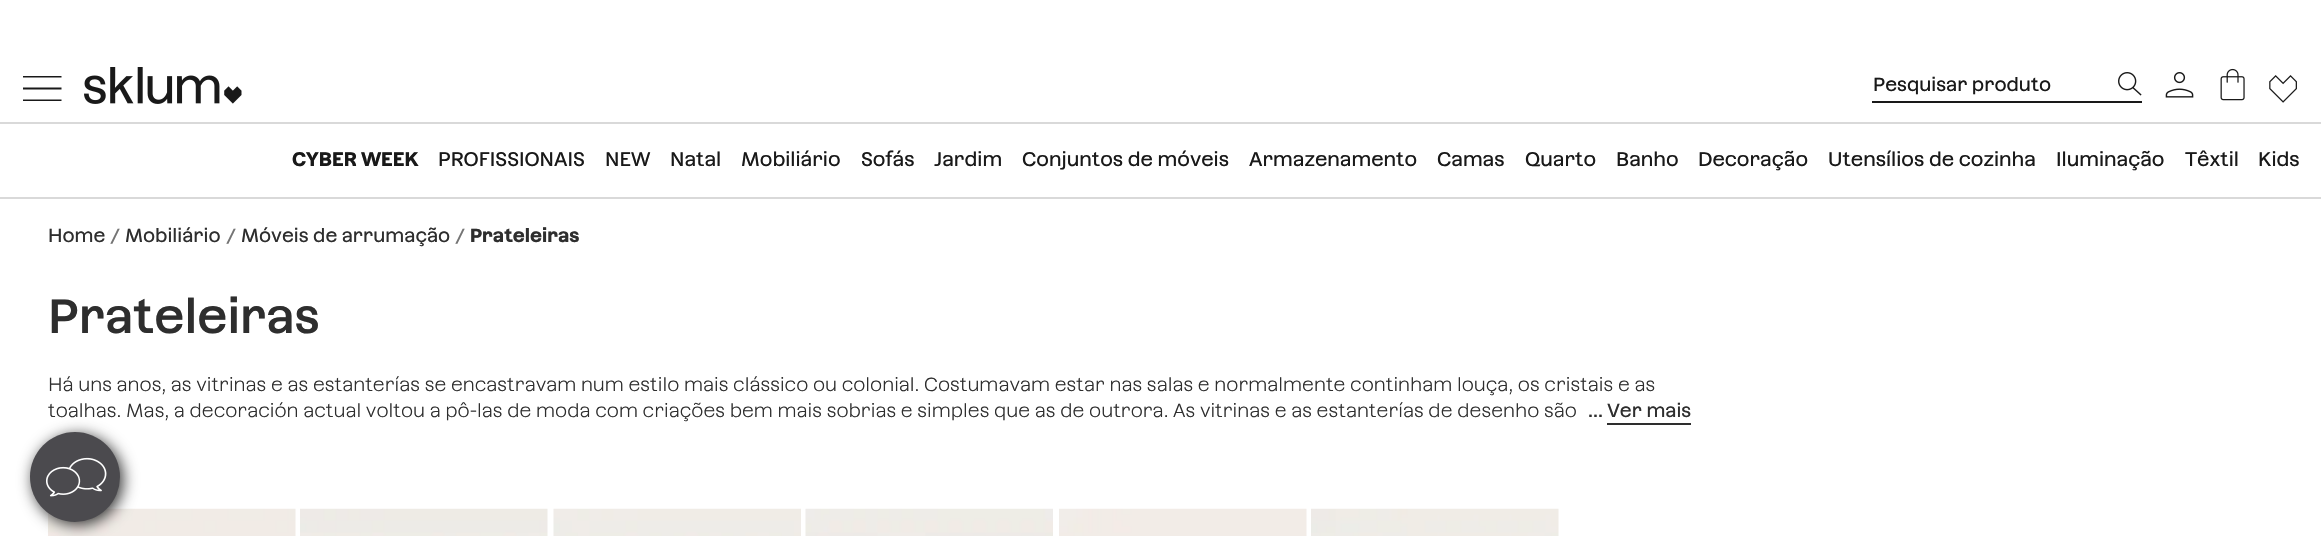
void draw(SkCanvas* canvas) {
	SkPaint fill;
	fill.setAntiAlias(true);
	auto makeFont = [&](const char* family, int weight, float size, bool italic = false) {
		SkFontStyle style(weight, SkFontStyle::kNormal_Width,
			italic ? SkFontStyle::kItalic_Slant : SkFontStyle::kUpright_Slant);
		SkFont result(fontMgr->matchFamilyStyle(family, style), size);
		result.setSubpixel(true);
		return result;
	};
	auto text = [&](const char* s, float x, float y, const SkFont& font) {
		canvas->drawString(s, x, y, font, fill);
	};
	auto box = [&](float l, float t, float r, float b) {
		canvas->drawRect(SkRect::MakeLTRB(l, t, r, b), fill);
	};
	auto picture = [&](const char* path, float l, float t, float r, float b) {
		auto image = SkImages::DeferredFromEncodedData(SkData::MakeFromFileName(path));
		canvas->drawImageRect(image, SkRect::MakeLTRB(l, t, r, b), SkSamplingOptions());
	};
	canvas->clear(0xFFFFFFFF);
	fill.setColor(0xFFD9D9D9);
	box(0, 122, 2321, 124);
	fill.setColor(0xFF191919);
	canvas->drawPath(SkPathBuilder().moveTo(23, 101).lineTo(23, 99.5f).lineTo(61.5f, 99.5f).lineTo(61.5f, 101).close().moveTo(23, 89.5f).lineTo(23, 87.5f).lineTo(61.5f, 87.5f).lineTo(61.5f, 89.5f).close().moveTo(23, 77.5f).lineTo(23, 76).lineTo(61.5f, 76).lineTo(61.5f, 77.5f).close().detach(), fill);
	picture("image0.png", 84, 67, 242, 104);
	picture("image1.png", 2118, 72, 2142, 96);
	box(1872, 101, 2142, 103);
	picture("image2.png", 2165, 72, 2194, 98);
	picture("image3.png", 2220, 68, 2245, 101);
	picture("image4.png", 2269, 75, 2297, 103);
	fill.setColor(0xFFD9D9D9);
	box(0, 197, 2321, 199);
	fill.setColor(0xFF2E2E2E);
	box(1607, 423, 1691, 425);
	picture("image5.png", 48, 508, 296, 536);
	picture("image6.png", 300, 508, 548, 536);
	picture("image7.png", 553, 508, 801, 536);
	picture("image8.png", 805, 508, 1053, 536);
	picture("image9.png", 1059, 508, 1307, 536);
	picture("image10.png", 1311, 508, 1559, 536);
	fill.setColor(0xFF333333);
	fill.setMaskFilter(SkMaskFilter::MakeBlur(kNormal_SkBlurStyle, 7.5f));
	canvas->drawRoundRect(SkRect::MakeLTRB(33, 435, 123, 525), 45, 45, fill);
	fill.setMaskFilter(nullptr);
	fill.setColor(0xFF4B4A4E);
	canvas->drawCircle(75, 477, 45, fill);
	picture("image11.png", 46, 457, 107, 497);
	auto font1 = makeFont("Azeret", 400, 18.95f);
	fill.setColor(0xFF191919);
	text("Pesquisar produto", 1873, 91, font1);
	auto font2 = makeFont("Azeret", 700, 19.75f);
	text("CYBER WEEK", 292, 166, font2);
	auto font3 = makeFont("Azeret", 400, 19.75f);
	text("PROFISSIONAIS", 438, 166, font3);
	text("NEW", 605, 166, font3);
	text("Natal", 670, 166, font3);
	text("Mobiliário", 741, 166, font3);
	text("Sofás", 861, 166, font3);
	text("Jardim", 934, 166, font3);
	text("Conjuntos de móveis", 1022, 166, font3);
	text("Armazenamento", 1249, 166, font3);
	text("Camas", 1437, 166, font3);
	text("Quarto", 1525, 166, font3);
	text("Banho", 1616, 166, font3);
	text("Decoração", 1698, 166, font3);
	text("Utensílios de cozinha", 1828, 166, font3);
	text("Iluminação", 2056, 166, font3);
	text("Têxtil", 2185, 166, font3);
	text("Kids", 2258, 166, font3);
	fill.setColor(0xFF2E2E2E);
	text("Home", 48, 242, font1);
	fill.setColor(0xFF747474);
	text("/", 111, 242, font1);
	fill.setColor(0xFF2E2E2E);
	text("Mobiliário", 125, 242, font1);
	fill.setColor(0xFF747474);
	text("/", 227, 242, font1);
	fill.setColor(0xFF2E2E2E);
	text("Móveis de arrumação", 241, 242, font1);
	fill.setColor(0xFF747474);
	text("/", 456, 242, font1);
	auto font4 = makeFont("Azeret", 700, 18.95f);
	fill.setColor(0xFF2E2E2E);
	text("Prateleiras", 470, 242, font4);
	auto font5 = makeFont("Azeret", 500, 48);
	text("Prateleiras", 48, 333, font5);
	auto font6 = makeFont("Azeret", 300, 18.95f);
	text("Há uns anos, as vitrinas e as estanterías se encastravam num estilo mais clássico ou colonial. Costumavam estar nas salas e normalmente continham louça, os cristais e as", 48, 391, font6);
	text("toalhas. Mas, a decoración actual voltou a pô-las de moda com criações bem mais sobrias e simples que as de outrora. As vitrinas e as estanterías de desenho são", 48, 417, font6);
	text("... Ver mais", 1588, 417, font1);
}
